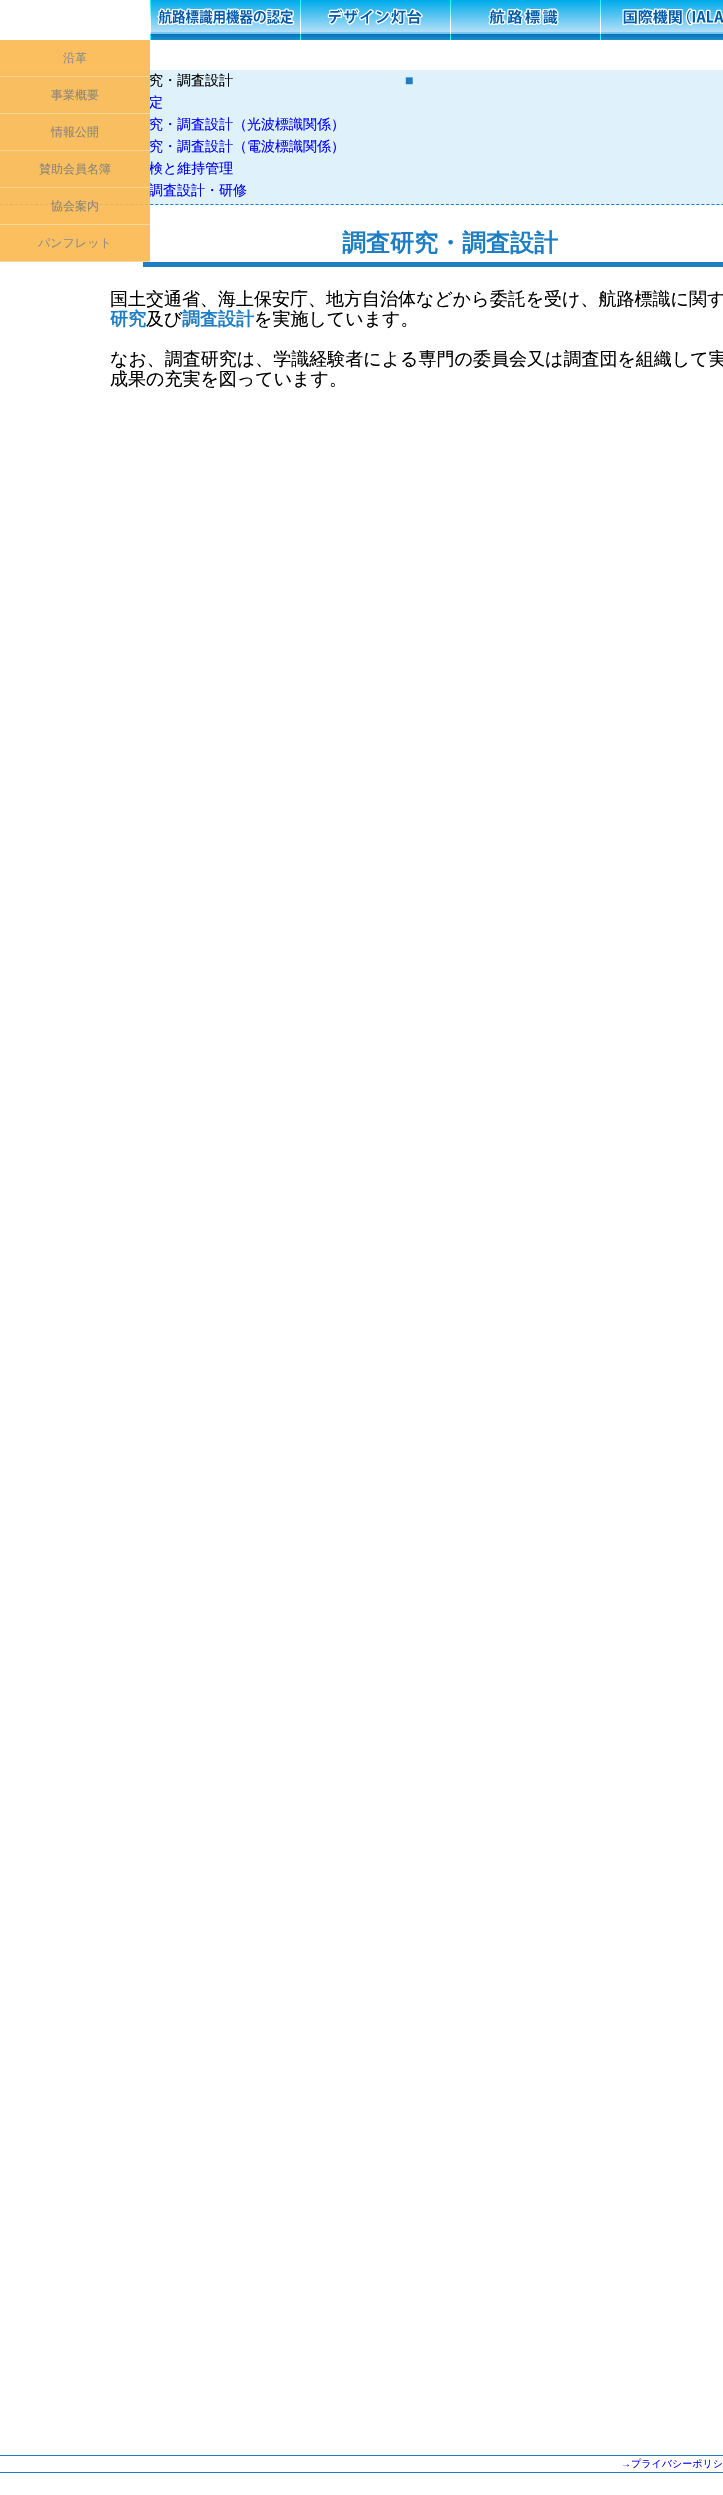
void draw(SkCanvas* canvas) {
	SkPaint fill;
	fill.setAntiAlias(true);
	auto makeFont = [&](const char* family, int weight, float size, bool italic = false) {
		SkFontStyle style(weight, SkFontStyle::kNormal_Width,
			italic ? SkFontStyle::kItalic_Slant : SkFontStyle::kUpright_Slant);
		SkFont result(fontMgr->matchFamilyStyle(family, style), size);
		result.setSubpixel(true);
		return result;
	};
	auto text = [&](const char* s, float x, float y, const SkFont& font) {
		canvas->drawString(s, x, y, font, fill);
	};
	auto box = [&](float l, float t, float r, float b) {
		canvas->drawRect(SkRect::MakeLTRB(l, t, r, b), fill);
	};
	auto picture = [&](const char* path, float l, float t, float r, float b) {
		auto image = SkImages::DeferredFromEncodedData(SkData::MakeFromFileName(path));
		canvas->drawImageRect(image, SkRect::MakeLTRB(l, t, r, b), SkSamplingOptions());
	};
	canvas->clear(0xFFFFFFFF);
	picture("image0.png", 150, 0, 300, 40);
	picture("image1.png", 300, 0, 450, 40);
	picture("image2.png", 450, 0, 600, 40);
	picture("image3.png", 600, 0, 723, 40);
	fill.setColor(0xFFDFF2FC);
	box(0, 70, 723, 205);
	fill.setColor(0xFFF8D69E);
	box(0, 113, 150, 114);
	fill.setColor(0xFFFBD79F);
	box(0, 224, 150, 225);
	fill.setColor(0xFFFBBF60);
	box(0, 225, 150, 261);
	fill.setColor(0xFFFBD79F);
	box(0, 261, 150, 262);
	fill.setStyle(SkPaint::kStroke_Style);
	fill.setStrokeWidth(1);
	fill.setColor(0xFF1D7EC3);
	fill.setPathEffect(SkDashPathEffect::Make({{3, 2.01f}}, 0));
	canvas->drawPath(SkPathBuilder().moveTo(0, 204.5f).lineTo(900, 204.5f).detach(), fill);
	fill.setPathEffect(nullptr);
	fill.setStyle(SkPaint::kFill_Style);
	box(143, 262, 723, 267);
	box(0, 2455, 723, 2456);
	box(0, 2472, 723, 2473);
	auto font1 = makeFont("WenQuanYi Zen Hei", 500, 12);
	fill.setColor(0xFF8C8C8C);
	text("パンフレット", 38, 247, font1);
	auto font2 = makeFont("WenQuanYi Zen Hei", 500, 14);
	fill.setColor(0xFF000000);
	text("究・調査設計", 149, 85, font2);
	fill.setColor(0xE6FBB84E);
	box(0, 40, 150, 77);
	fill.setColor(0xFF8C8C8C);
	text("沿革", 63, 62, font1);
	fill.setColor(0xE6FBD394);
	box(0, 76, 150, 77);
	auto font3 = makeFont("Liberation Serif", 400, 14);
	fill.setColor(0xFF1D7EC3);
	text("■", 405, 85, font3);
	fill.setColor(0xFF0000FF);
	text("定", 149, 107, font2);
	fill.setColor(0xE6FBB84E);
	box(0, 77, 150, 113);
	fill.setColor(0xFF8B857C);
	text("事業概要", 51, 99, font1);
	fill.setColor(0xFF0000FF);
	text("究・調査設計（光波標識関係）", 149, 129, font2);
	text("究・調査設計（電波標識関係）", 149, 151, font2);
	fill.setColor(0xE6FBB84E);
	box(0, 114, 150, 151);
	fill.setColor(0xFF8B857C);
	text("情報公開", 51, 136, font1);
	fill.setColor(0xE6FBD394);
	box(0, 150, 150, 151);
	fill.setColor(0xFF0000FF);
	text("検と維持管理", 149, 173, font2);
	text("調査設計・研修", 149, 195, font2);
	fill.setColor(0xE6FBB84E);
	box(0, 188, 150, 224);
	fill.setColor(0xFF8B857C);
	text("協会案内", 51, 210, font1);
	fill.setColor(0xE6FBB84E);
	box(0, 151, 150, 188);
	fill.setColor(0xFF8B857C);
	text("賛助会員名簿", 39, 173, font1);
	fill.setColor(0xE6FBD394);
	box(0, 187, 150, 188);
	auto font4 = makeFont("WenQuanYi Zen Hei", 700, 24);
	fill.setColor(0xFF1D7EC3);
	text("調査研究・調査設計", 342, 251, font4);
	auto font5 = makeFont("WenQuanYi Zen Hei", 500, 18);
	fill.setColor(0xFF000000);
	text("国土交通省、海上保安庁、地方自治体などから委託を受け、航路標識に関す", 110, 305, font5);
	auto font6 = makeFont("WenQuanYi Zen Hei", 700, 18);
	fill.setColor(0xFF1D7EC3);
	text("研究", 110, 325, font6);
	fill.setColor(0xFF000000);
	text("及び", 146, 325, font5);
	fill.setColor(0xFF1D7EC3);
	text("調査設計", 182, 325, font6);
	fill.setColor(0xFF000000);
	text("を実施しています。", 254, 325, font5);
	text("なお、調査研究は、学識経験者による専門の委員会又は調査団を組織して実", 110, 365, font5);
	text("成果の充実を図っています。", 110, 385, font5);
	auto font7 = makeFont("Liberation Serif", 400, 10);
	fill.setColor(0xFF0000FF);
	text("→", 621, 2467, font7);
	auto font8 = makeFont("WenQuanYi Zen Hei", 500, 10);
	text("プライバシーポリシ", 631, 2467, font8);
}
